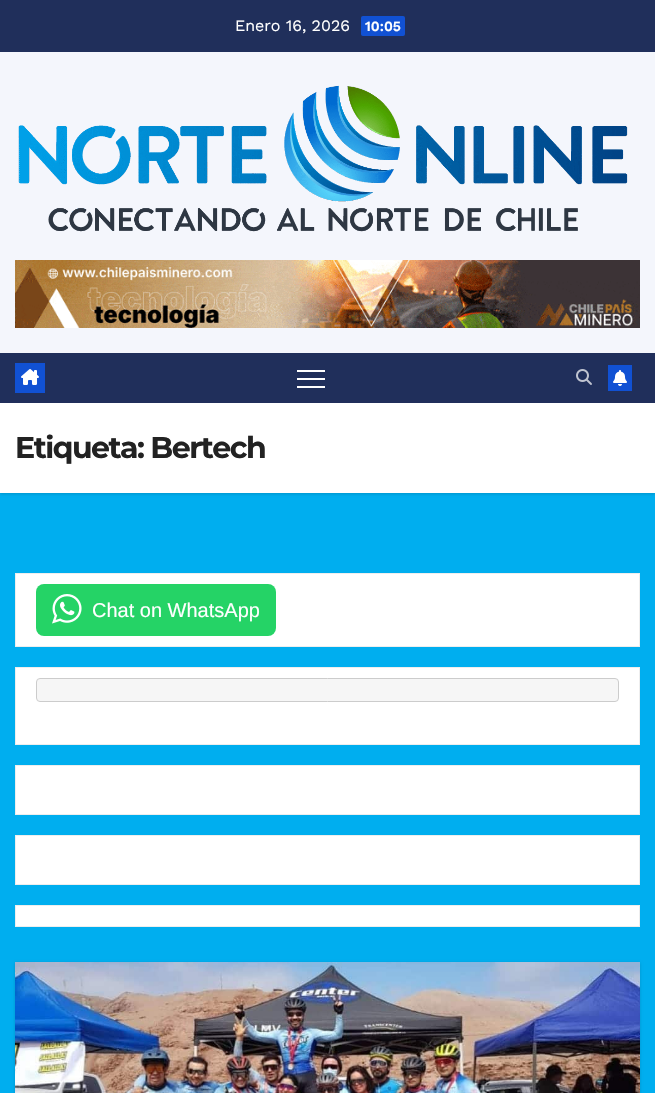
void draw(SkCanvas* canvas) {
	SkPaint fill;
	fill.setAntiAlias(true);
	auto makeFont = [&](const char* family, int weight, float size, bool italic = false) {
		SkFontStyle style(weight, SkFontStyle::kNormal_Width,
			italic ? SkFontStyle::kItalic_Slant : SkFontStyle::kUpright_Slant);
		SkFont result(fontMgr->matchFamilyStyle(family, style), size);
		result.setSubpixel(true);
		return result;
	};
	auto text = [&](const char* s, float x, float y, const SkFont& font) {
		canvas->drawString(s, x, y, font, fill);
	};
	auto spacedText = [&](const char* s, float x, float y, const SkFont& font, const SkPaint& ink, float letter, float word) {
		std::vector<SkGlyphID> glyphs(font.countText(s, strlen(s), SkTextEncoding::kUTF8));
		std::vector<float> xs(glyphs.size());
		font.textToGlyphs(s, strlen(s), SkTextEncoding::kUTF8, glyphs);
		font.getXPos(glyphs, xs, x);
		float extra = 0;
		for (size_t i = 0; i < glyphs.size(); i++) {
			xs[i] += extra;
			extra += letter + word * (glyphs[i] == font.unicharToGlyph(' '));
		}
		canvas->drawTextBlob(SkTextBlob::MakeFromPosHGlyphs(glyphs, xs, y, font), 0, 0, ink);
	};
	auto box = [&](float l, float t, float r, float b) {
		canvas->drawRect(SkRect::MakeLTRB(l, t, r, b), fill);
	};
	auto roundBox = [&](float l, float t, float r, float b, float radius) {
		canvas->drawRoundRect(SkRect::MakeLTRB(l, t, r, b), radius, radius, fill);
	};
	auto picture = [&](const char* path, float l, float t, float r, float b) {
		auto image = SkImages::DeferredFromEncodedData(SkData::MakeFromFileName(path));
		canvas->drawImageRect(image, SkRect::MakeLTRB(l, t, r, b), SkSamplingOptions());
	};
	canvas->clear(0xFF00AEEF);
	fill.setColor(0xFF202F5B);
	box(0, 0, 655, 52);
	fill.setColor(0xFF1151D3);
	roundBox(361, 16, 405, 36, 2);
	fill.setColor(0xFFF4F6FC);
	box(0, 52, 655, 353);
	picture("image0.png", 18, 85, 628, 232);
	picture("image1.png", 15, 260, 640, 328);
	fill.setColor(0x26000000);
	fill.setMaskFilter(SkMaskFilter::MakeBlur(kNormal_SkBlurStyle, 1.5f));
	canvas->drawRect(SkRect::MakeLTRB(0, 404, 655, 494), fill);
	fill.setMaskFilter(nullptr);
	fill.setColor(0xFF202F5B);
	box(0, 353, 655, 403);
	fill.setColor(0xFF1151D3);
	box(15, 363, 45, 393);
	picture("image2.png", 21, 369, 39, 385);
	fill.setColor(0xFFFFFFFF);
	box(297, 370, 325, 372);
	box(297, 378, 325, 380);
	box(297, 386, 325, 388);
	picture("image3.png", 576, 369, 592, 385);
	fill.setColor(0xFF1151D3);
	box(608, 365, 632, 391);
	picture("image4.png", 613, 370, 627, 386);
	fill.setColor(0xFFFFFFFF);
	box(0, 403, 655, 493);
	canvas->drawRect(SkRect::MakeLTRB(15.5f, 573.5f, 639.5f, 646.5f), fill);
	fill.setStyle(SkPaint::kStroke_Style);
	fill.setStrokeWidth(1);
	fill.setColor(0xFFEEEEEE);
	canvas->drawRect(SkRect::MakeLTRB(15.5f, 573.5f, 639.5f, 646.5f), fill);
	fill.setStyle(SkPaint::kFill_Style);
	fill.setColor(0xFF25D366);
	roundBox(36, 584, 276, 636, 8);
	picture("image5.png", 52, 594, 82, 624);
	fill.setColor(0xFFFFFFFF);
	canvas->drawRect(SkRect::MakeLTRB(15.5f, 667.5f, 639.5f, 744.5f), fill);
	fill.setStyle(SkPaint::kStroke_Style);
	fill.setColor(0xFFEEEEEE);
	canvas->drawRect(SkRect::MakeLTRB(15.5f, 667.5f, 639.5f, 744.5f), fill);
	fill.setStyle(SkPaint::kFill_Style);
	fill.setColor(0xFFF6F6F6);
	canvas->drawRoundRect(SkRect::MakeLTRB(36.5f, 678.5f, 618.5f, 701.5f), 3.5f, 3.5f, fill);
	fill.setStyle(SkPaint::kStroke_Style);
	fill.setColor(0xFFCCCCCC);
	canvas->drawRoundRect(SkRect::MakeLTRB(36.5f, 678.5f, 618.5f, 701.5f), 3.5f, 3.5f, fill);
	fill.setStyle(SkPaint::kFill_Style);
	fill.setColor(0xFFFFFFFF);
	canvas->drawRect(SkRect::MakeLTRB(15.5f, 765.5f, 639.5f, 814.5f), fill);
	fill.setStyle(SkPaint::kStroke_Style);
	fill.setColor(0xFFEEEEEE);
	canvas->drawRect(SkRect::MakeLTRB(15.5f, 765.5f, 639.5f, 814.5f), fill);
	fill.setStyle(SkPaint::kFill_Style);
	fill.setColor(0xFFFFFFFF);
	canvas->drawRect(SkRect::MakeLTRB(15.5f, 835.5f, 639.5f, 884.5f), fill);
	fill.setStyle(SkPaint::kStroke_Style);
	fill.setColor(0xFFEEEEEE);
	canvas->drawRect(SkRect::MakeLTRB(15.5f, 835.5f, 639.5f, 884.5f), fill);
	fill.setStyle(SkPaint::kFill_Style);
	fill.setColor(0xFFFFFFFF);
	canvas->drawRect(SkRect::MakeLTRB(15.5f, 905.5f, 639.5f, 926.5f), fill);
	fill.setStyle(SkPaint::kStroke_Style);
	fill.setColor(0xFFEEEEEE);
	canvas->drawRect(SkRect::MakeLTRB(15.5f, 905.5f, 639.5f, 926.5f), fill);
	fill.setStyle(SkPaint::kFill_Style);
	fill.setColor(0x26000000);
	fill.setMaskFilter(SkMaskFilter::MakeBlur(kNormal_SkBlurStyle, 1.5f));
	canvas->drawRect(SkRect::MakeLTRB(15, 963, 640, 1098), fill);
	fill.setMaskFilter(nullptr);
	picture("image6.png", 15, 962, 640, 1093);
	auto font1 = makeFont("Work Sans", 400, 16);
	fill.setColor(0xFFFFFFFF);
	text("Enero 16, 2026", 235, 31, font1);
	auto font2 = makeFont("Work Sans", 600, 14);
	text("10:05", 365, 31, font2);
	auto font3 = makeFont("Montserrat", 700, 30);
	fill.setColor(0xFF222222);
	spacedText("Etiqueta: Bertech", 15, 458, font3, fill, -1.5f, 0);
	auto font4 = makeFont("Liberation Sans", 400, 20);
	fill.setColor(0xFFFFFFFF);
	text("Chat on WhatsApp", 92, 617, font4);
}
